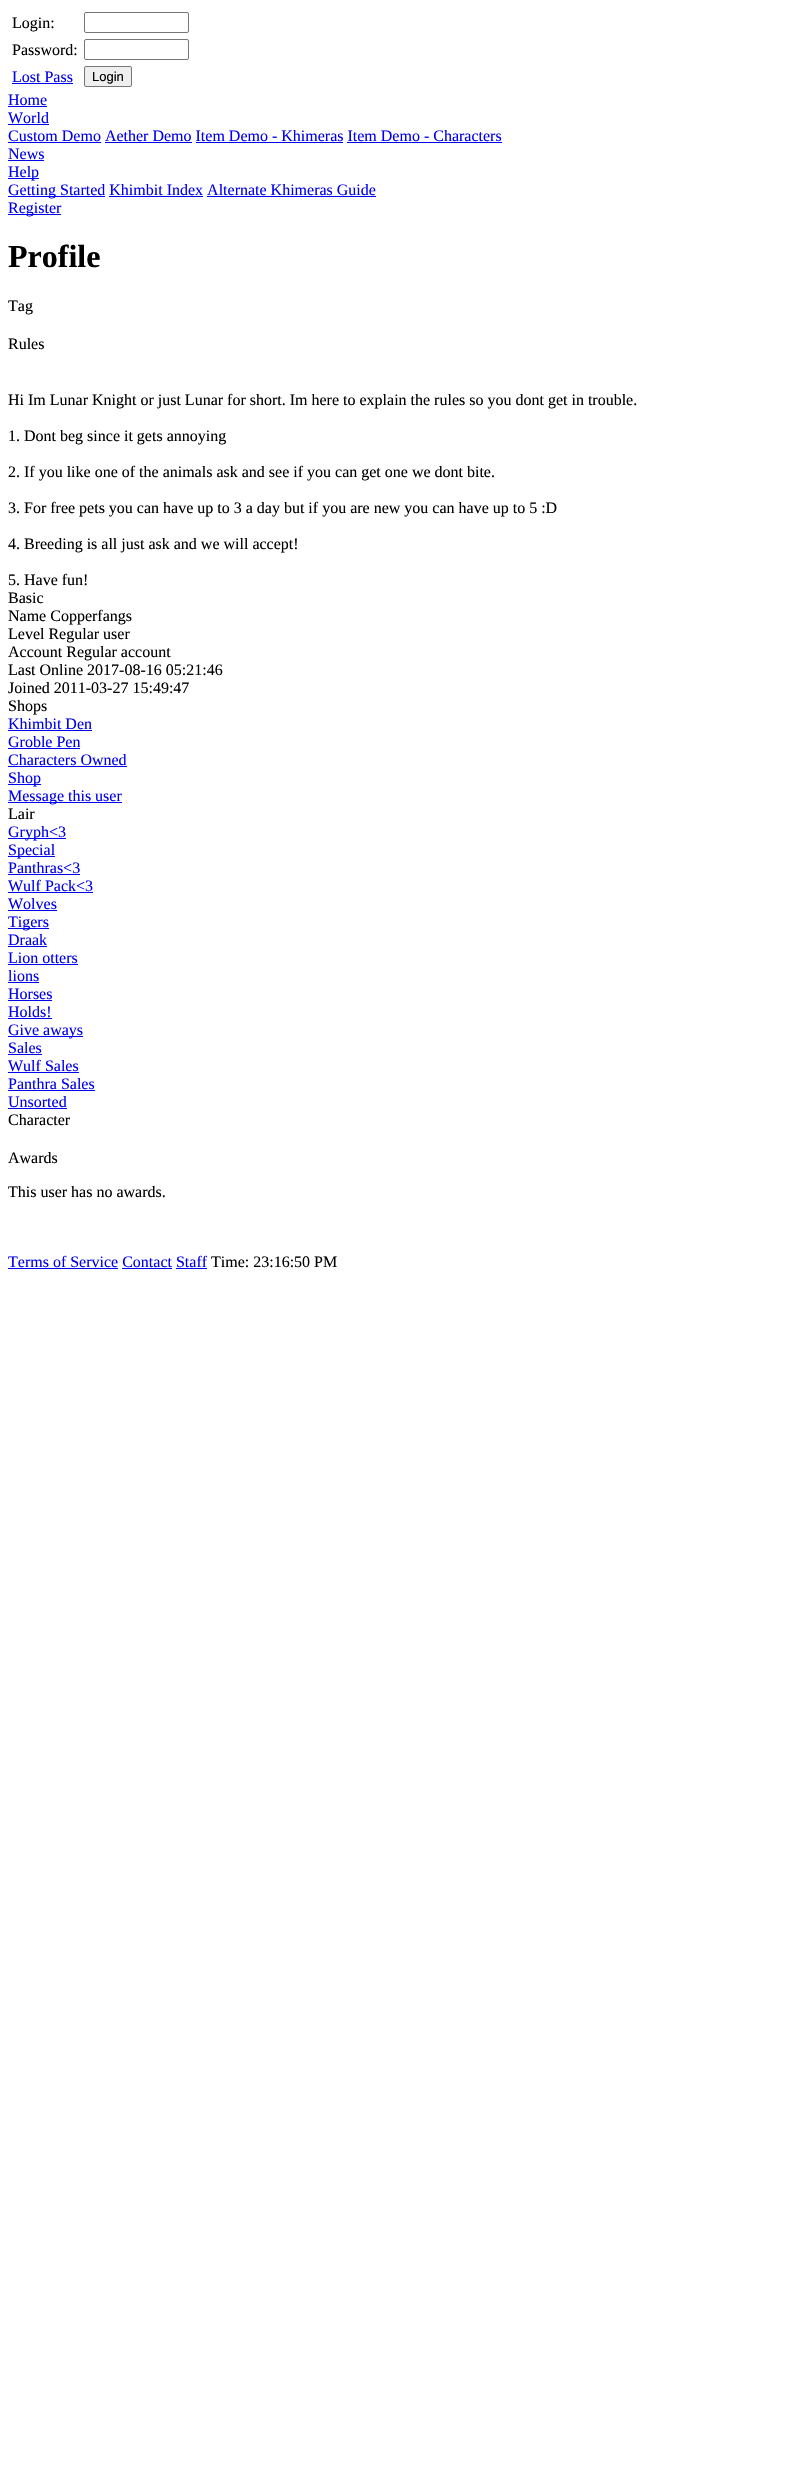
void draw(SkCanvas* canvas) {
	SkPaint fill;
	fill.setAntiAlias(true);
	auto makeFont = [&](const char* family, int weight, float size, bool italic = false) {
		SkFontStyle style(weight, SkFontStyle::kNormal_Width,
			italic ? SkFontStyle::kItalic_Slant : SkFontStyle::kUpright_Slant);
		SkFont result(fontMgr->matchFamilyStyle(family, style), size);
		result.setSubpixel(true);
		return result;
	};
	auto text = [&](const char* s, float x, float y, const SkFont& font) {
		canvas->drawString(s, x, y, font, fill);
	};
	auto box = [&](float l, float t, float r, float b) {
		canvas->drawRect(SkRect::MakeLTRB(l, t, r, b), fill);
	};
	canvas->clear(0xFFFFFFFF);
	fill.setStyle(SkPaint::kStroke_Style);
	fill.setStrokeWidth(1);
	fill.setColor(0xFF767676);
	canvas->drawRoundRect(SkRect::MakeLTRB(84.5f, 12.5f, 188.5f, 32.5f), 1.5f, 1.5f, fill);
	canvas->drawRoundRect(SkRect::MakeLTRB(84.5f, 39.5f, 188.5f, 59.5f), 1.5f, 1.5f, fill);
	fill.setStyle(SkPaint::kFill_Style);
	fill.setColor(0xFF0000EE);
	box(12, 83, 73, 84);
	fill.setColor(0xFFEFEFEF);
	canvas->drawRoundRect(SkRect::MakeLTRB(84.5f, 66.5f, 131.5f, 86.5f), 1.5f, 1.5f, fill);
	fill.setStyle(SkPaint::kStroke_Style);
	fill.setColor(0xFF767676);
	canvas->drawRoundRect(SkRect::MakeLTRB(84.5f, 66.5f, 131.5f, 86.5f), 1.5f, 1.5f, fill);
	fill.setStyle(SkPaint::kFill_Style);
	fill.setColor(0xFF0000EE);
	box(8, 106, 47, 107);
	box(8, 124, 49, 125);
	box(8, 142, 101, 143);
	box(105, 142, 192, 143);
	box(196, 142, 343, 143);
	box(347, 142, 502, 143);
	box(8, 160, 44, 161);
	box(8, 178, 39, 179);
	box(8, 196, 105, 197);
	box(109, 196, 203, 197);
	box(207, 196, 376, 197);
	box(8, 214, 61, 215);
	box(8, 730, 92, 731);
	box(8, 748, 80, 749);
	box(8, 766, 127, 767);
	box(8, 784, 41, 785);
	box(8, 802, 122, 803);
	box(8, 838, 66, 839);
	box(8, 856, 55, 857);
	box(8, 874, 80, 875);
	box(8, 892, 93, 893);
	box(8, 910, 57, 911);
	box(8, 928, 49, 929);
	box(8, 946, 47, 947);
	box(8, 964, 78, 965);
	box(8, 982, 39, 983);
	box(8, 1000, 52, 1001);
	box(8, 1018, 52, 1019);
	box(8, 1036, 83, 1037);
	box(8, 1054, 42, 1055);
	box(8, 1072, 79, 1073);
	box(8, 1090, 95, 1091);
	box(8, 1108, 67, 1109);
	box(8, 1268, 118, 1269);
	box(122, 1268, 172, 1269);
	box(176, 1268, 207, 1269);
	auto font1 = makeFont("Liberation Serif", 400, 16);
	fill.setColor(0xFF000000);
	text("Login:", 12, 28, font1);
	text("Password:", 12, 55, font1);
	fill.setColor(0xFF0000EE);
	text("Lost Pass", 12, 82, font1);
	auto font2 = makeFont("Liberation Sans", 400, 13);
	fill.setColor(0xFF000000);
	text("Login", 92, 81, font2);
	fill.setColor(0xFF0000EE);
	text("Home", 8, 105, font1);
	text("World", 8, 123, font1);
	text("Custom Demo Aether Demo Item Demo - Khimeras Item Demo - Characters", 8, 141, font1);
	text("News", 8, 159, font1);
	text("Help", 8, 177, font1);
	text("Getting Started Khimbit Index Alternate Khimeras Guide", 8, 195, font1);
	text("Register", 8, 213, font1);
	auto font3 = makeFont("Liberation Serif", 700, 32);
	fill.setColor(0xFF000000);
	text("Profile", 8, 267, font3);
	text("Tag", 8, 311, font1);
	text("Rules", 8, 349, font1);
	text("Hi Im Lunar Knight or just Lunar for short. Im here to explain the rules so you dont get in trouble.", 8, 405, font1);
	text("1. Dont beg since it gets annoying", 8, 441, font1);
	text("2. If you like one of the animals ask and see if you can get one we dont bite.", 8, 477, font1);
	text("3. For free pets you can have up to 3 a day but if you are new you can have up to 5 :D", 8, 513, font1);
	text("4. Breeding is all just ask and we will accept!", 8, 549, font1);
	text("5. Have fun!", 8, 585, font1);
	text("Basic", 8, 603, font1);
	text("Name Copperfangs", 8, 621, font1);
	text("Level Regular user", 8, 639, font1);
	text("Account Regular account", 8, 657, font1);
	text("Last Online 2017-08-16 05:21:46", 8, 675, font1);
	text("Joined 2011-03-27 15:49:47", 8, 693, font1);
	text("Shops", 8, 711, font1);
	fill.setColor(0xFF0000EE);
	text("Khimbit Den", 8, 729, font1);
	text("Groble Pen", 8, 747, font1);
	text("Characters Owned", 8, 765, font1);
	text("Shop", 8, 783, font1);
	text("Message this user", 8, 801, font1);
	fill.setColor(0xFF000000);
	text("Lair", 8, 819, font1);
	fill.setColor(0xFF0000EE);
	text("Gryph<3", 8, 837, font1);
	text("Special", 8, 855, font1);
	text("Panthras<3", 8, 873, font1);
	text("Wulf Pack<3", 8, 891, font1);
	text("Wolves", 8, 909, font1);
	text("Tigers", 8, 927, font1);
	text("Draak", 8, 945, font1);
	text("Lion otters", 8, 963, font1);
	text("lions", 8, 981, font1);
	text("Horses", 8, 999, font1);
	text("Holds!", 8, 1017, font1);
	text("Give aways", 8, 1035, font1);
	text("Sales", 8, 1053, font1);
	text("Wulf Sales", 8, 1071, font1);
	text("Panthra Sales", 8, 1089, font1);
	text("Unsorted", 8, 1107, font1);
	fill.setColor(0xFF000000);
	text("Character", 8, 1125, font1);
	text("Awards", 8, 1163, font1);
	text("This user has no awards.", 8, 1197, font1);
	fill.setColor(0xFF0000EE);
	text("Terms of Service Contact Staff", 8, 1267, font1);
	fill.setColor(0xFF000000);
	text("Time: 23:16:50 PM", 211, 1267, font1);
}
